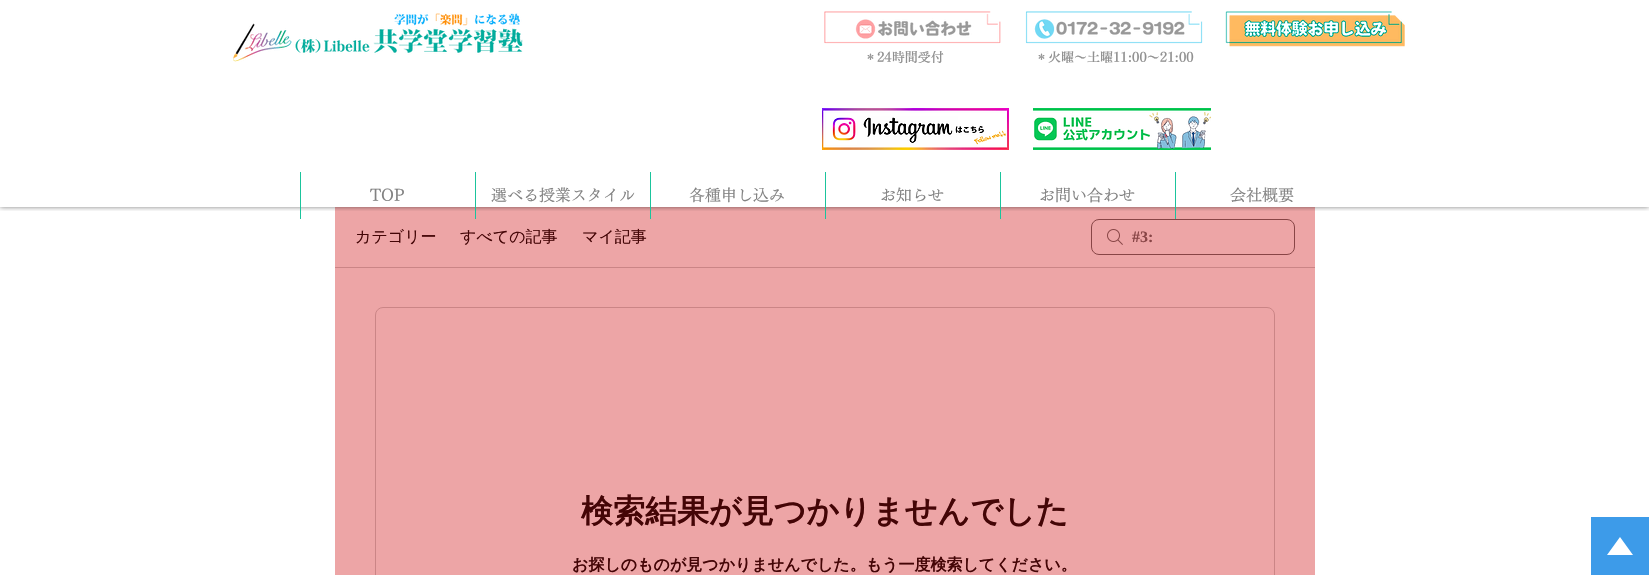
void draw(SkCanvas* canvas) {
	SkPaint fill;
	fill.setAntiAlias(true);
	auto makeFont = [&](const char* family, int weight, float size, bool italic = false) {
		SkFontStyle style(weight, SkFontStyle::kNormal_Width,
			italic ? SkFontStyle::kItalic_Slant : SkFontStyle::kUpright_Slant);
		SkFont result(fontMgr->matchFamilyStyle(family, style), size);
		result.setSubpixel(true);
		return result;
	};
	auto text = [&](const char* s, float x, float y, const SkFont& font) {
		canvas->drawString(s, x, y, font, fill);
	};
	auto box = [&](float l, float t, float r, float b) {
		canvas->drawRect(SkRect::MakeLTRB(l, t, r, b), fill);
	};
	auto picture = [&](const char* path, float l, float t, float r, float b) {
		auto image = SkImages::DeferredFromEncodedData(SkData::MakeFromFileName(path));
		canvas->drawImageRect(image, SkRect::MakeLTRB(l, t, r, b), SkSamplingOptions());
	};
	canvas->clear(0xFFFFFFFF);
	fill.setColor(0xFFEDA5A6);
	box(335, 207, 1315, 575);
	canvas->save();
	canvas->clipRect(SkRect::MakeLTRB(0, 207, 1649, 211));
	fill.setColor(0x80000000);
	fill.setMaskFilter(SkMaskFilter::MakeBlur(kNormal_SkBlurStyle, 2.5f));
	canvas->drawRect(SkRect::MakeLTRB(0, 0, 1649, 207), fill);
	fill.setMaskFilter(nullptr);
	canvas->restore();
	picture("image0.png", 233, 12, 523, 62);
	picture("image1.png", 824, 11, 1001, 44);
	picture("image2.png", 1025, 11, 1203, 44);
	picture("image3.png", 1225, 11, 1405, 47);
	picture("image4.png", 822, 108, 1009, 150);
	picture("image5.png", 1033, 108, 1211, 150);
	fill.setColor(0xFF1BC49C);
	box(300, 172, 301, 219);
	box(475, 172, 476, 219);
	box(650, 172, 651, 219);
	box(825, 172, 826, 219);
	box(1000, 172, 1001, 219);
	box(1175, 172, 1176, 219);
	fill.setColor(0xFFCB8586);
	box(335, 267, 1315, 268);
	picture("image6.png", 1107, 229, 1123, 245);
	fill.setStyle(SkPaint::kStroke_Style);
	fill.setStrokeWidth(1);
	fill.setColor(0xFF884546);
	canvas->drawRoundRect(SkRect::MakeLTRB(1091.5f, 219.5f, 1294.5f, 254.5f), 7.5f, 7.5f, fill);
	fill.setColor(0xFFCB8586);
	canvas->drawRoundRect(SkRect::MakeLTRB(375.5f, 307.5f, 1274.5f, 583.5f), 7.5f, 7.5f, fill);
	fill.setStyle(SkPaint::kFill_Style);
	fill.setColor(0xFF3D9BE9);
	canvas->drawPath(SkPathBuilder().moveTo(1591, 517).lineTo(1591, 575).lineTo(1649, 575).lineTo(1649, 517).close().moveTo(1607, 555).lineTo(1620, 537).lineTo(1633, 555).close().detach(), fill);
	auto font1 = makeFont("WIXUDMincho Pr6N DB", 600, 13);
	fill.setColor(0xFF919191);
	text("＊24時間受付", 864, 62, font1);
	text("＊火曜～土曜11:00～21:00", 1035, 62, font1);
	auto font2 = makeFont("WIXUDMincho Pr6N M", 500, 16);
	fill.setColor(0xFF828282);
	text("TOP", 370, 201, font2);
	text("選べる授業スタイル", 491, 201, font2);
	text("各種申し込み", 689, 201, font2);
	text("お知らせ", 880, 201, font2);
	text("お問い合わせ", 1039, 201, font2);
	text("会社概要", 1230, 201, font2);
	auto font3 = makeFont("WenQuanYi Zen Hei", 500, 16);
	fill.setColor(0xFF440506);
	text("カテゴリー", 355, 242, font3);
	text("すべての記事", 460, 242, font3);
	text("マイ記事", 582, 242, font3);
	canvas->save();
	canvas->clipRect(SkRect::MakeLTRB(1132, 228, 1282, 246));
	auto font4 = makeFont("Liberation Serif", 700, 16);
	fill.setColor(0xFF884546);
	text("#3:", 1132, 242, font4);
	canvas->restore();
	auto font5 = makeFont("WenQuanYi Zen Hei", 700, 32);
	fill.setColor(0xFF440506);
	text("検索結果が見つかりませんでした", 581, 522, font5);
	auto font6 = makeFont("WenQuanYi Zen Hei", 700, 16);
	text("お探しのものが見つかりませんでした。もう一度検索してください。", 572, 570, font6);
}
